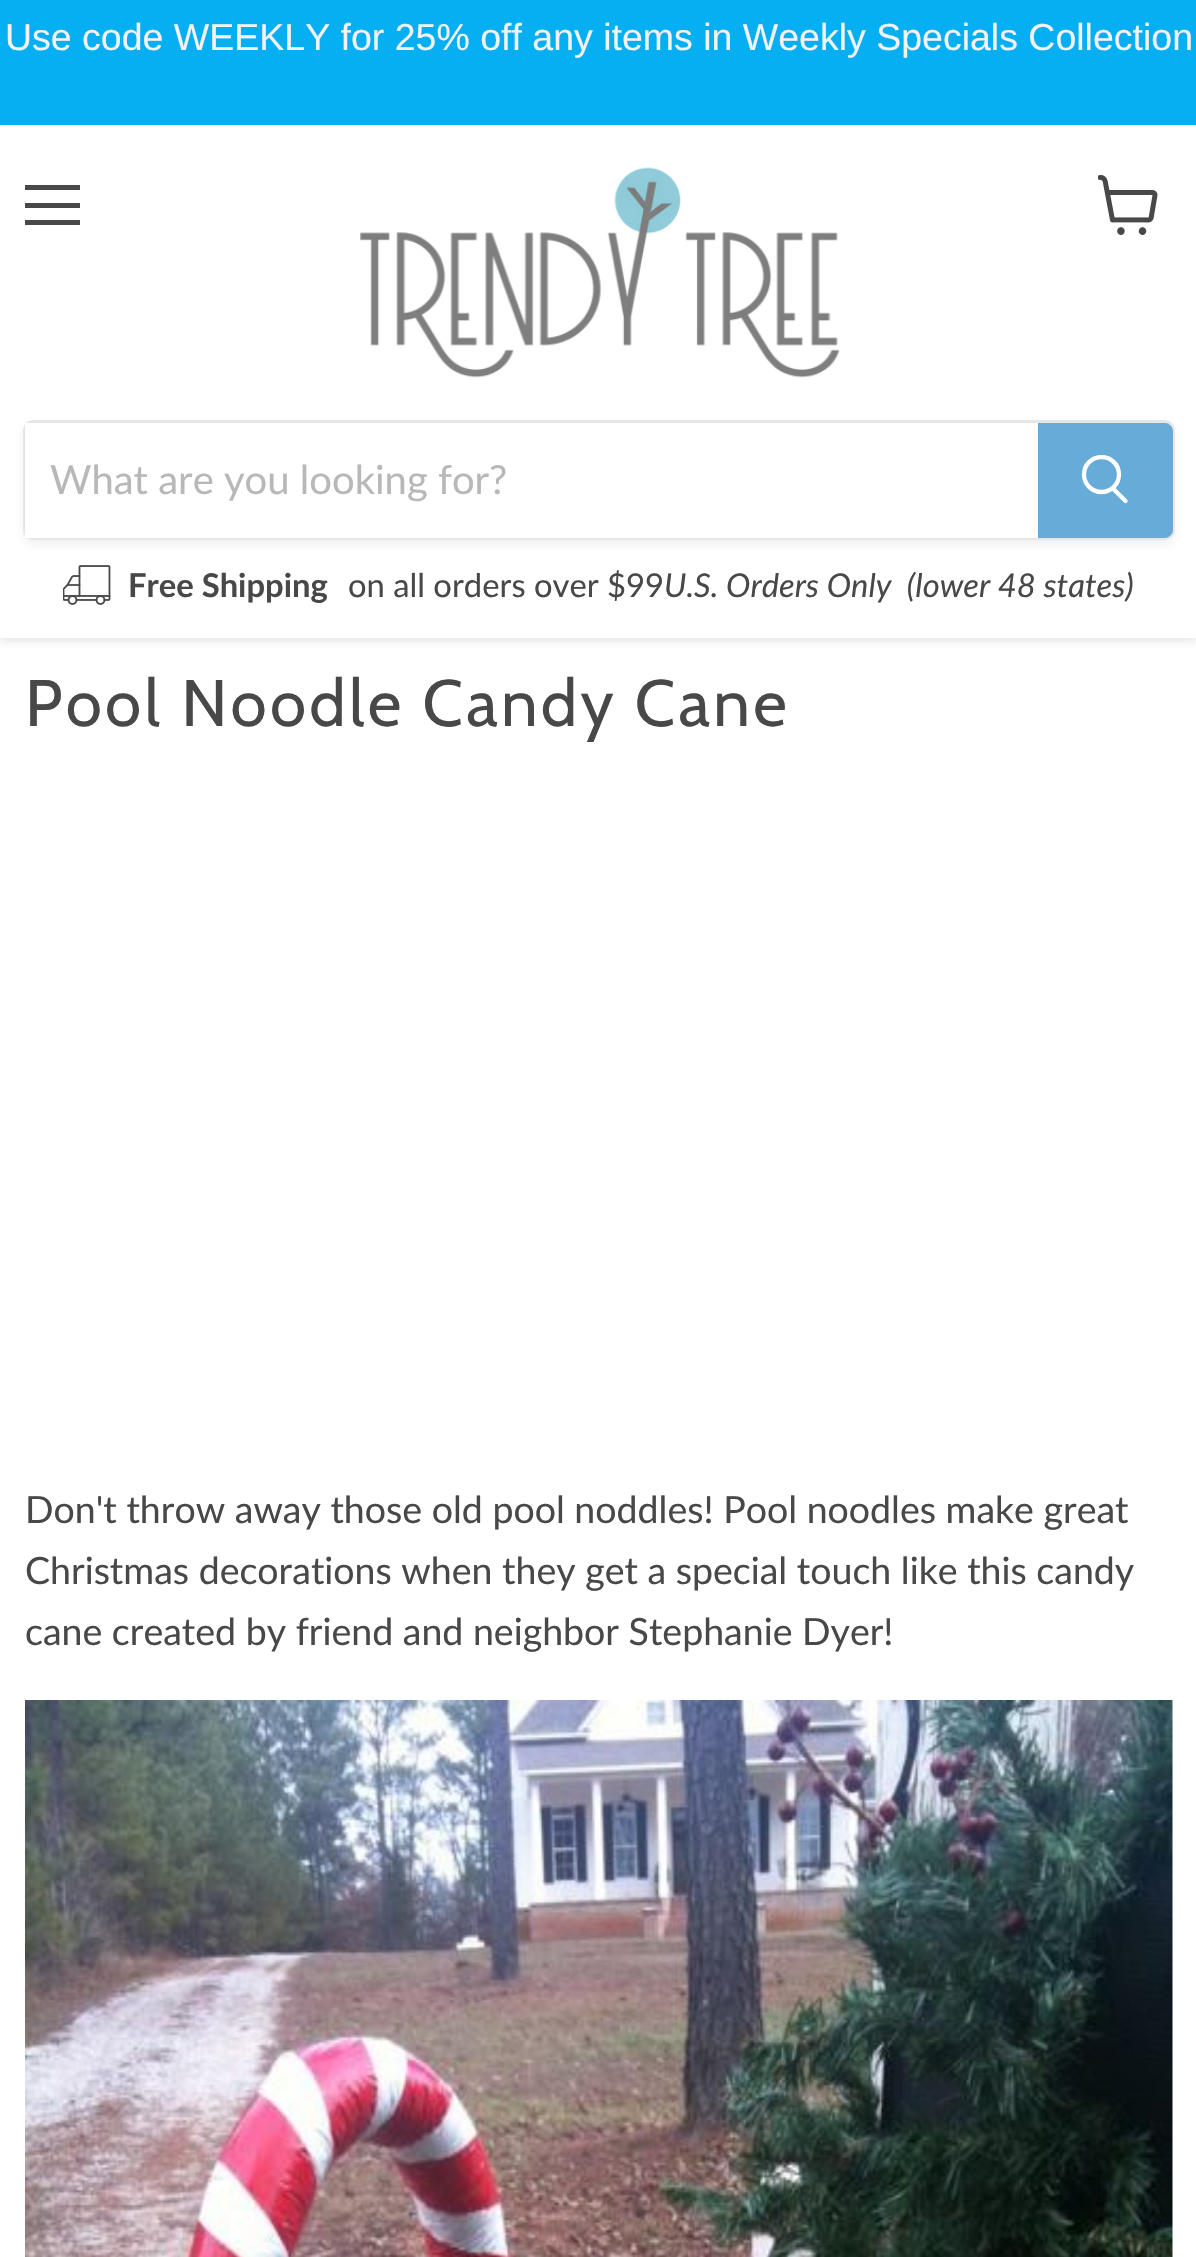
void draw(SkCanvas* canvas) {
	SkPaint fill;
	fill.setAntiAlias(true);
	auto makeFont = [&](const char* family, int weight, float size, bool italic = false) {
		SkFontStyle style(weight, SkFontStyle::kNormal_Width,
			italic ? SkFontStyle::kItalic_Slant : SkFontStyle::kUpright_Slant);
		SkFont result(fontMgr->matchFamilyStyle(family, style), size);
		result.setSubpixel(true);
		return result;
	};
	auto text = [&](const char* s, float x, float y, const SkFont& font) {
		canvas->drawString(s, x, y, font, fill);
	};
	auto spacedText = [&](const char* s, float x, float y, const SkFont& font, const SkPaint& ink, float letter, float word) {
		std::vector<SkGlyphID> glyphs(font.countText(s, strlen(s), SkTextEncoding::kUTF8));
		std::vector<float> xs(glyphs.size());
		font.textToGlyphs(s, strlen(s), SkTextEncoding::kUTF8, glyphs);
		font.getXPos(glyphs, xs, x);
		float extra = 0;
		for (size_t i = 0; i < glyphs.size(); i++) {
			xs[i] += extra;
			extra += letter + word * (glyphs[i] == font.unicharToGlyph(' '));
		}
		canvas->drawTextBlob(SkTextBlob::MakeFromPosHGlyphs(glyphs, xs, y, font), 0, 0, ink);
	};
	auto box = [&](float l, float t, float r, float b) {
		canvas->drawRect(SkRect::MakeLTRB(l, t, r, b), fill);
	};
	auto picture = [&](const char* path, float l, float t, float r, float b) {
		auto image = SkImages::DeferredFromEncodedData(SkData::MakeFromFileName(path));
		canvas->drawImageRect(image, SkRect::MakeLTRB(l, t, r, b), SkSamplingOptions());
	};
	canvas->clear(0xFFFFFFFF);
	fill.setColor(0x40808080);
	fill.setMaskFilter(SkMaskFilter::MakeBlur(kNormal_SkBlurStyle, 5));
	canvas->drawRect(SkRect::MakeLTRB(0, 125, 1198, 640), fill);
	fill.setMaskFilter(nullptr);
	fill.setColor(0xFF05AFF2);
	box(0, 0, 1196, 125);
	fill.setColor(0xFFFFFFFF);
	box(0, 125, 1196, 638);
	fill.setColor(0xFF484848);
	box(25, 185, 80, 190);
	box(25, 203, 80, 208);
	box(25, 220, 80, 225);
	picture("image0.png", 1098, 175, 1158, 235);
	picture("image1.png", 360, 167, 840, 378);
	canvas->save();
	canvas->clipPath(SkPathBuilder(SkPathFillType::kEvenOdd).moveTo(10, 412).lineTo(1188, 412).lineTo(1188, 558).lineTo(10, 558).close().moveTo(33, 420).lineTo(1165, 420).cubicTo(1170.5f, 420, 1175, 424.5f, 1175, 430).lineTo(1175, 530).cubicTo(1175, 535.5f, 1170.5f, 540, 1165, 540).lineTo(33, 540).cubicTo(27.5f, 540, 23, 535.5f, 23, 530).lineTo(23, 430).cubicTo(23, 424.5f, 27.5f, 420, 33, 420).close().detach(), true);
	fill.setColor(0x1C808080);
	fill.setMaskFilter(SkMaskFilter::MakeBlur(kNormal_SkBlurStyle, 4));
	canvas->drawRoundRect(SkRect::MakeLTRB(23, 425, 1175, 545), 10, 10, fill);
	fill.setMaskFilter(nullptr);
	canvas->restore();
	fill.setStyle(SkPaint::kStroke_Style);
	fill.setStrokeWidth(3);
	fill.setColor(0x33808080);
	canvas->drawRoundRect(SkRect::MakeLTRB(24.5f, 421.5f, 1173.5f, 538.5f), 8.5f, 8.5f, fill);
	fill.setStyle(SkPaint::kFill_Style);
	fill.setColor(0xFFFFFFFF);
	box(25, 423, 1038, 538);
	fill.setColor(0xFF67ABD9);
	canvas->drawPath(SkPathBuilder().moveTo(1039.5f, 424.5f).lineTo(1165, 424.5f).cubicTo(1168.5f, 424.5f, 1171.5f, 427.5f, 1171.5f, 431).lineTo(1171.5f, 530).cubicTo(1171.5f, 533.5f, 1168.5f, 536.5f, 1165, 536.5f).lineTo(1039.5f, 536.5f).close().detach(), fill);
	fill.setStyle(SkPaint::kStroke_Style);
	canvas->drawPath(SkPathBuilder().moveTo(1039.5f, 424.5f).lineTo(1165, 424.5f).cubicTo(1168.5f, 424.5f, 1171.5f, 427.5f, 1171.5f, 431).lineTo(1171.5f, 530).cubicTo(1171.5f, 533.5f, 1168.5f, 536.5f, 1165, 536.5f).lineTo(1039.5f, 536.5f).close().detach(), fill);
	fill.setStrokeWidth(4.3f);
	fill.setStrokeCap(SkPaint::kRound_Cap);
	fill.setColor(0xFFFFFFFF);
	canvas->drawPath(SkPathBuilder().moveTo(1125.5f, 501).lineTo(1113.5f, 489).detach(), fill);
	canvas->save();
	canvas->clipRect(SkRect::MakeLTRB(1080, 455, 1130, 508));
	fill.setStrokeCap(SkPaint::kButt_Cap);
	canvas->drawCircle(1101.5f, 474.5f, 17.5f, fill);
	canvas->restore();
	picture("image2.png", 63, 565, 111, 605);
	picture("image3.png", 25, 1700, 1173, 2257);
	auto font1 = makeFont("Liberation Sans", 400, 37.5f);
	fill.setStyle(SkPaint::kFill_Style);
	fill.setColor(0xFFF2F2F2);
	text("Use code WEEKLY for 25% off any items in Weekly Specials Collection", 5, 50, font1);
	auto font2 = makeFont("Lato", 400, 40);
	fill.setColor(0xFFB8B8B8);
	text("What are you looking for?", 50, 494, font2);
	auto font3 = makeFont("Lato", 700, 32.75f);
	fill.setColor(0xFF484848);
	text("Free Shipping", 128, 597, font3);
	auto font4 = makeFont("Lato", 400, 32.75f);
	text("on all orders over $99", 348, 597, font4);
	auto font5 = makeFont("Lato", 400, 32.75f, true);
	text("U.S. Orders Only  (lower 48 states)", 664, 597, font5);
	auto font6 = makeFont("Cabin", 400, 65.6f);
	spacedText("Pool Noodle Candy Cane", 25, 726, font6, fill, 3.25f, 0);
	auto font7 = makeFont("Lato", 400, 37.5f);
	text("Don't throw away those old pool noddles! Pool noodles make great", 25, 1523, font7);
	text("Christmas decorations when they get a special touch like this candy", 25, 1584, font7);
	text("cane created by friend and neighbor Stephanie Dyer!", 25, 1645, font7);
}
